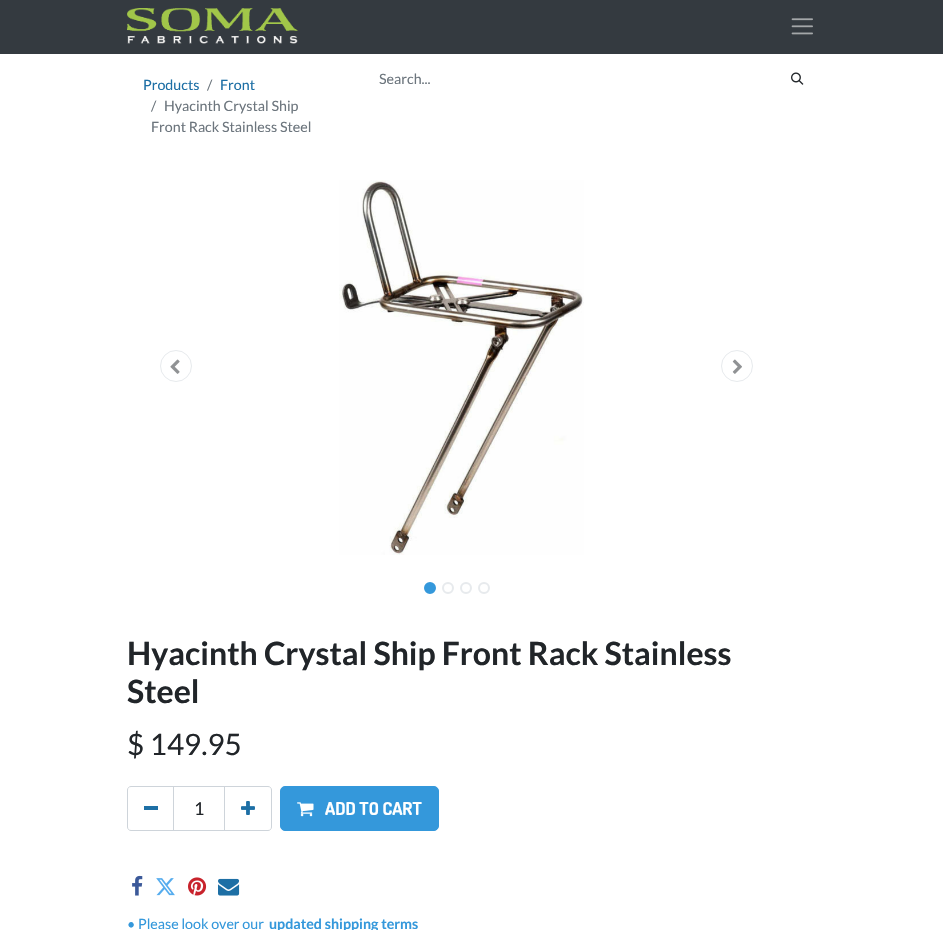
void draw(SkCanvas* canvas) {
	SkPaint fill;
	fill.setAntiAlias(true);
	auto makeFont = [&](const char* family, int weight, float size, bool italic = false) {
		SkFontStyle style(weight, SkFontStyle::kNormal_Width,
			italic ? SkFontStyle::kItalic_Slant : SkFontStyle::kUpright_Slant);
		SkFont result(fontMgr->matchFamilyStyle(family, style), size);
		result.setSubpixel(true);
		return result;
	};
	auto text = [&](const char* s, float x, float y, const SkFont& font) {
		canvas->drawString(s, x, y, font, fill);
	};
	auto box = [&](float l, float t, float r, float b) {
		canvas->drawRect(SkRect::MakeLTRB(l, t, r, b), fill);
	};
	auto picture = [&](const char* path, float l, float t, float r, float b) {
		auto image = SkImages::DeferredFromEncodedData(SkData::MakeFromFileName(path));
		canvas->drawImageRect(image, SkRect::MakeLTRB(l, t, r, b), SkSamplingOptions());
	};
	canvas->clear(0xFFFFFFFF);
	fill.setColor(0xFF343A40);
	box(0, 0, 943, 54);
	picture("image0.png", 127, 8, 298, 44);
	picture("image1.png", 791, 18, 813, 35);
	picture("image2.png", 791, 72, 804, 85);
	fill.setStyle(SkPaint::kStroke_Style);
	fill.setStrokeWidth(1);
	fill.setColor(0xFFE7EAED);
	canvas->drawCircle(176, 366, 15.5f, fill);
	picture("image3.png", 170, 359, 180, 374);
	picture("image4.png", 339, 180, 584, 555);
	canvas->drawCircle(737, 366, 15.5f, fill);
	picture("image5.png", 732, 359, 742, 374);
	fill.setStyle(SkPaint::kFill_Style);
	fill.setColor(0xFF3498DB);
	canvas->drawCircle(430, 588, 5, fill);
	fill.setStyle(SkPaint::kStroke_Style);
	fill.setStrokeWidth(2);
	canvas->drawCircle(430, 588, 5, fill);
	fill.setColor(0xFFE7EAED);
	canvas->drawCircle(448, 588, 5, fill);
	canvas->drawCircle(466, 588, 5, fill);
	canvas->drawCircle(484, 588, 5, fill);
	fill.setStrokeWidth(1);
	fill.setColor(0xFFCED4DA);
	canvas->drawRect(SkRect::MakeLTRB(173.5f, 786.5f, 224.5f, 830.5f), fill);
	canvas->drawPath(SkPathBuilder().moveTo(131, 786.5f).lineTo(173.5f, 786.5f).lineTo(173.5f, 830.5f).lineTo(131, 830.5f).cubicTo(129, 830.5f, 127.5f, 829, 127.5f, 827).lineTo(127.5f, 790).cubicTo(127.5f, 788, 129, 786.5f, 131, 786.5f).close().detach(), fill);
	fill.setStyle(SkPaint::kFill_Style);
	fill.setColor(0xFF1D6FA5);
	box(144, 806, 158, 810);
	fill.setStyle(SkPaint::kStroke_Style);
	fill.setColor(0xFFCED4DA);
	canvas->drawPath(SkPathBuilder().moveTo(224.5f, 786.5f).lineTo(268, 786.5f).cubicTo(270, 786.5f, 271.5f, 788, 271.5f, 790).lineTo(271.5f, 827).cubicTo(271.5f, 829, 270, 830.5f, 268, 830.5f).lineTo(224.5f, 830.5f).close().detach(), fill);
	picture("image6.png", 241, 801, 255, 815);
	fill.setStyle(SkPaint::kFill_Style);
	fill.setColor(0xFF3498DB);
	canvas->drawRoundRect(SkRect::MakeLTRB(280.5f, 786.5f, 438.5f, 830.5f), 4.5f, 4.5f, fill);
	fill.setStyle(SkPaint::kStroke_Style);
	canvas->drawRoundRect(SkRect::MakeLTRB(280.5f, 786.5f, 438.5f, 830.5f), 4.5f, 4.5f, fill);
	picture("image7.png", 297, 802, 314, 817);
	picture("image8.png", 132, 875, 143, 896);
	picture("image9.png", 156, 878, 175, 896);
	picture("image10.png", 188, 877, 207, 896);
	picture("image11.png", 218, 878, 240, 896);
	auto font1 = makeFont("Lato", 400, 14.25f);
	fill.setStyle(SkPaint::kFill_Style);
	fill.setColor(0xFF1D6FA5);
	text("Products", 143, 90, font1);
	fill.setColor(0xFF6C757D);
	text("/", 207, 90, font1);
	fill.setColor(0xFF1D6FA5);
	text("Front", 220, 90, font1);
	fill.setColor(0xFF6C757D);
	text("/", 151, 111, font1);
	text("Hyacinth Crystal Ship", 164, 111, font1);
	text("Front Rack Stainless Steel", 151, 132, font1);
	text("Search...", 379, 84, font1);
	auto font2 = makeFont("Lato", 700, 32);
	fill.setColor(0xFF212529);
	text("Hyacinth Crystal Ship Front Rack Stainless", 127, 665, font2);
	text("Steel", 127, 703, font2);
	auto font3 = makeFont("Lato", 400, 29.5f);
	text("$ 149.95", 127, 755, font3);
	auto font4 = makeFont("Lato", 400, 17.75f);
	text("1", 194, 815, font4);
	auto font5 = makeFont("Dosis", 700, 17.75f);
	fill.setColor(0xFFFFFFFF);
	text("ADD TO CART", 325, 815, font5);
	fill.setColor(0xFF3498DB);
	text("• Please look over our", 127, 929, font1);
	auto font6 = makeFont("Lato", 700, 14.25f);
	text("updated shipping terms", 269, 929, font6);
}
